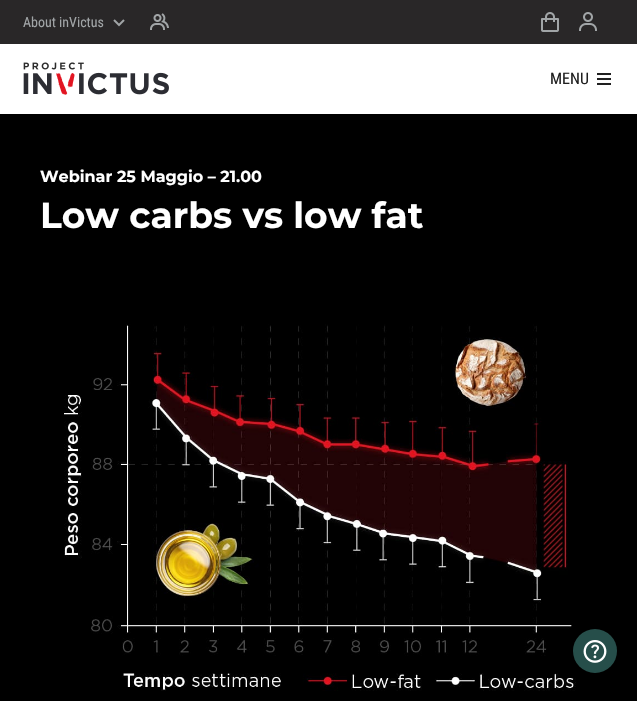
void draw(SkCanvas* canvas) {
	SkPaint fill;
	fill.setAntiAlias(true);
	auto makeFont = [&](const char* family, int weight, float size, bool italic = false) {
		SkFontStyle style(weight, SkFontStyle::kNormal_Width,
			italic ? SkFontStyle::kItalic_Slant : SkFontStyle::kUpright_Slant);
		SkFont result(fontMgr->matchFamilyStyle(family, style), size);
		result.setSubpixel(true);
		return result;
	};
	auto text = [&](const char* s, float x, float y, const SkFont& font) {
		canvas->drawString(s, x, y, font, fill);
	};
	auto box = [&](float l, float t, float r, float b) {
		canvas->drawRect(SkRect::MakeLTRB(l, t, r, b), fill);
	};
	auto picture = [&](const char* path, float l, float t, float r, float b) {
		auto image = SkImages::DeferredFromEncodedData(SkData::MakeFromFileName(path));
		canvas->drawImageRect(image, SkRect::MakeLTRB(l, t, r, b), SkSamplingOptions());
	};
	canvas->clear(0xFFFFFFFF);
	fill.setColor(0xFF292728);
	box(0, 0, 637, 44);
	picture("image0.png", 113, 19, 125, 27);
	picture("image1.png", 150, 13, 169, 30);
	picture("image2.png", 541, 12, 559, 32);
	picture("image3.png", 579, 12, 597, 31);
	picture("image4.png", 23, 62, 169, 95);
	picture("image5.png", 597, 73, 611, 85);
	fill.setColor(0xFF000000);
	box(0, 114, 637, 701);
	picture("image6.png", 64, 324, 576, 691);
	fill.setColor(0xFF264E4A);
	canvas->drawCircle(595, 651, 22, fill);
	picture("image7.png", 583, 640, 607, 663);
	auto font1 = makeFont("Roboto Condensed", 400, 14);
	fill.setColor(0xFFA1A5A7);
	text("About inVictus", 23, 27, font1);
	auto font2 = makeFont("Roboto Condensed", 400, 16);
	fill.setColor(0xFF202020);
	text("MENU", 550, 84, font2);
	auto font3 = makeFont("Montserrat", 700, 16);
	fill.setColor(0xFFFFFFFF);
	text("Webinar 25 Maggio – 21.00", 40, 182, font3);
	auto font4 = makeFont("Montserrat", 700, 36);
	text("Low carbs vs low fat", 40, 228, font4);
}
